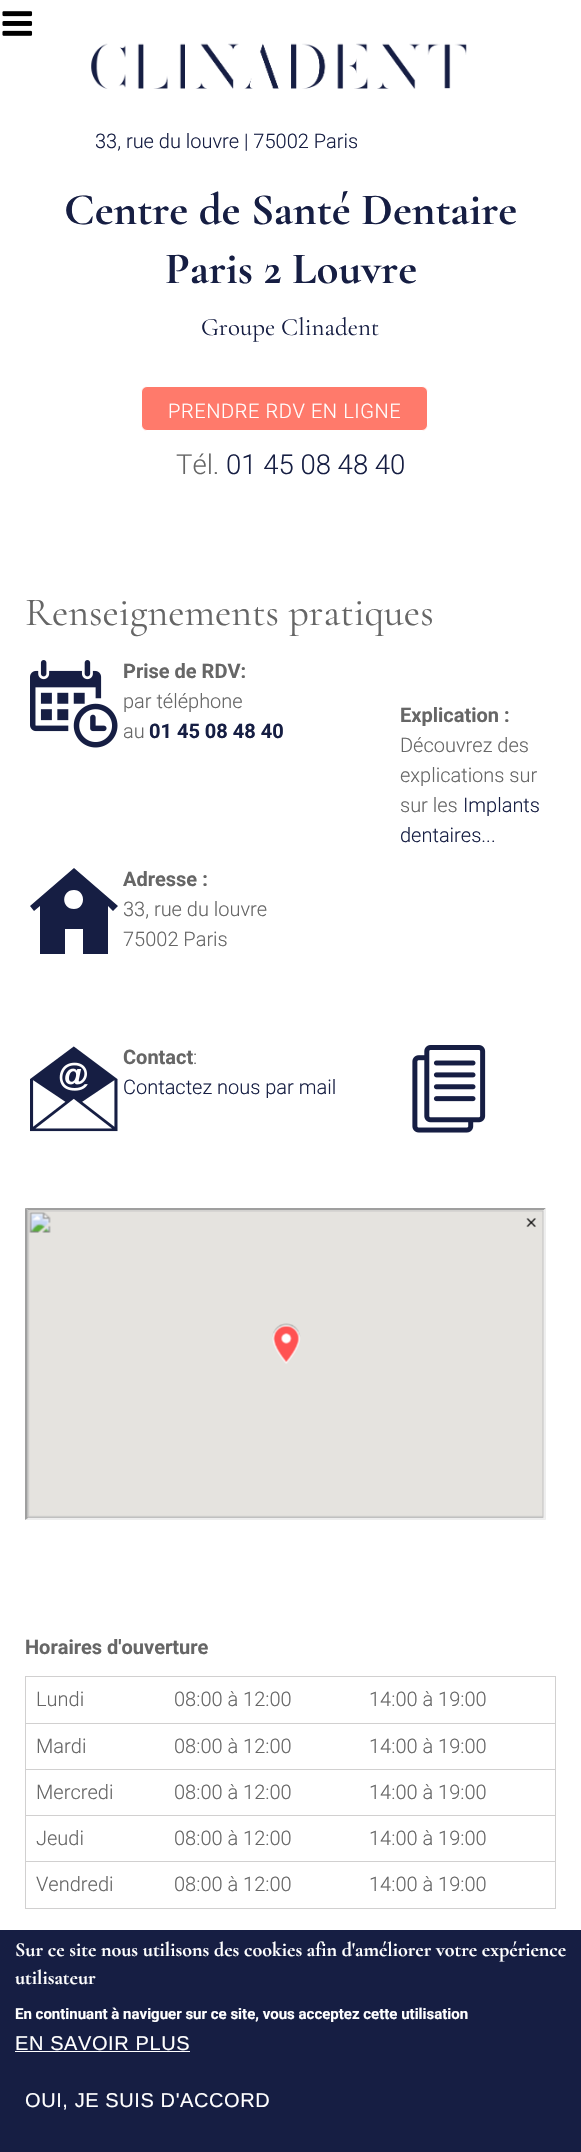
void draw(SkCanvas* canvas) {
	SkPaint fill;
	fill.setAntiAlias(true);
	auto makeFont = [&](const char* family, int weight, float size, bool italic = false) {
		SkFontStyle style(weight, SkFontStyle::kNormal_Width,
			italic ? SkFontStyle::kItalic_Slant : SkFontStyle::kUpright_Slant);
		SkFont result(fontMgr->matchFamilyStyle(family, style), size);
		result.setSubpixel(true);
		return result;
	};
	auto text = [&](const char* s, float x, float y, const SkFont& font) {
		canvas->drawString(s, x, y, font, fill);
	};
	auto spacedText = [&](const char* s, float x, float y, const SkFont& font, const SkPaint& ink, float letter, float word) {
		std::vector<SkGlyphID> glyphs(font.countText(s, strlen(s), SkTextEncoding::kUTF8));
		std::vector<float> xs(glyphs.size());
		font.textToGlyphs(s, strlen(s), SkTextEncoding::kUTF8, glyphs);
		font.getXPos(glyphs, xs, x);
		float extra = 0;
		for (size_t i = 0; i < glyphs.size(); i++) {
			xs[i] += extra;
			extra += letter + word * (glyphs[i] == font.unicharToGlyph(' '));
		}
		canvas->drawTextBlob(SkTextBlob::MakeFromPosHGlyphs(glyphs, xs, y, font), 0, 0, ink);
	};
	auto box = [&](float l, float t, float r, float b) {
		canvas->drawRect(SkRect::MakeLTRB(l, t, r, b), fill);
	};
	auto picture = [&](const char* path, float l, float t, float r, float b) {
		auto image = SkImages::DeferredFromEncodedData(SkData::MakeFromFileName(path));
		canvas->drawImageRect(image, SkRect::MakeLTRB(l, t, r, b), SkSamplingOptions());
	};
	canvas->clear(0xFFFFFFFF);
	picture("image0.png", 2, 11, 33, 36);
	picture("image1.png", 91, 43, 467, 89);
	fill.setColor(0xFFFF7A6B);
	canvas->drawRoundRect(SkRect::MakeLTRB(141.5f, 386.5f, 427.5f, 430.5f), 5.5f, 5.5f, fill);
	fill.setStyle(SkPaint::kStroke_Style);
	fill.setStrokeWidth(1);
	fill.setColor(0xFFFFFFFF);
	canvas->drawRoundRect(SkRect::MakeLTRB(141.5f, 386.5f, 427.5f, 430.5f), 5.5f, 5.5f, fill);
	picture("image2.png", 30, 660, 118, 748);
	fill.setStyle(SkPaint::kFill_Style);
	fill.setColor(0xFF161E43);
	canvas->drawPath(SkPathBuilder().moveTo(74, 868).lineTo(30, 906).lineTo(34, 911).lineTo(40, 906).lineTo(40, 954).lineTo(65, 954).lineTo(65, 929).lineTo(83, 929).lineTo(83, 954).lineTo(108, 954).lineTo(108, 906).lineTo(113, 911).lineTo(118, 906).close().moveTo(74, 909).cubicTo(61, 909, 61, 890, 74, 890).cubicTo(86, 890, 86, 909, 74, 909).close().detach(), fill);
	picture("image3.png", 30, 1046, 118, 1132);
	picture("image4.png", 412, 1045, 486, 1133);
	fill.setColor(0xFF9F9F9F);
	canvas->drawPath(SkPathBuilder().moveTo(25, 1208).lineTo(546, 1208).lineTo(544, 1210).lineTo(28, 1210).close().detach(), fill);
	fill.setColor(0xFFEEEEEE);
	canvas->drawPath(SkPathBuilder().moveTo(546, 1208).lineTo(546, 1520).lineTo(544, 1518).lineTo(544, 1210).close().detach(), fill);
	canvas->drawPath(SkPathBuilder().moveTo(546, 1520).lineTo(25, 1520).lineTo(28, 1518).lineTo(544, 1518).close().detach(), fill);
	fill.setColor(0xFF9F9F9F);
	canvas->drawPath(SkPathBuilder().moveTo(25, 1520).lineTo(25, 1208).lineTo(28, 1210).lineTo(28, 1518).close().detach(), fill);
	picture("image5.png", 27, 1210, 544, 1518);
	fill.setColor(0xFFD1D0D0);
	box(25, 1676, 556, 1677);
	box(25, 1723, 556, 1724);
	box(25, 1769, 556, 1770);
	box(25, 1815, 556, 1816);
	box(25, 1861, 556, 1862);
	box(555, 1861, 556, 1909);
	box(555, 1815, 556, 1863);
	box(555, 1769, 556, 1816);
	box(555, 1723, 556, 1770);
	box(555, 1676, 556, 1724);
	box(25, 1908, 556, 1909);
	box(25, 1861, 26, 1909);
	box(25, 1815, 26, 1863);
	box(25, 1769, 26, 1816);
	box(25, 1723, 26, 1770);
	box(25, 1676, 26, 1724);
	fill.setColor(0xFF161E43);
	box(0, 1930, 581, 2152);
	fill.setColor(0xFFFFFFFF);
	box(15, 2051, 190, 2052);
	auto font1 = makeFont("Roboto", 300, 20);
	fill.setColor(0xFF161E43);
	text("33, rue du louvre | 75002 Paris", 95, 148, font1);
	auto font2 = makeFont("Cormorant Garamond", 700, 45);
	text("Centre de Santé Dentaire", 64, 224, font2);
	text("Paris 2 Louvre", 165, 283, font2);
	auto font3 = makeFont("Cormorant Garamond", 400, 25);
	text("Groupe Clinadent", 201, 335, font3);
	fill.setColor(0xFFFFFFFF);
	spacedText("PRENDRE RDV EN LIGNE", 168, 418, font1, fill, 0.6f, 0);
	auto font4 = makeFont("Roboto", 300, 27.5f);
	fill.setColor(0xFF666666);
	text("Tél.", 176, 474, font4);
	fill.setColor(0xFF161E43);
	text("01 45 08 48 40", 226, 474, font4);
	auto font5 = makeFont("Cormorant Garamond", 400, 40);
	fill.setColor(0xFF666666);
	text("Renseignements pratiques", 25, 625, font5);
	auto font6 = makeFont("Roboto", 700, 20);
	text("Prise de RDV:", 123, 678, font6);
	text("par téléphone", 123, 708, font1);
	text("au", 123, 738, font1);
	fill.setColor(0xFF161E43);
	text("01 45 08 48 40", 149, 738, font6);
	fill.setColor(0xFF666666);
	text("Adresse :", 123, 886, font6);
	text("33, rue du louvre", 123, 916, font1);
	text("75002 Paris", 123, 946, font1);
	text("Explication :", 400, 722, font6);
	text("Découvrez des", 400, 752, font1);
	text("explications sur", 400, 782, font1);
	text("sur les", 400, 812, font1);
	fill.setColor(0xFF161E43);
	text("Implants", 463, 812, font1);
	text("dentaires...", 400, 842, font1);
	fill.setColor(0xFF666666);
	text("Contact", 123, 1064, font6);
	text(":", 193, 1064, font1);
	fill.setColor(0xFF161E43);
	text("Contactez nous par mail", 123, 1094, font1);
	fill.setColor(0xFF666666);
	text("Horaires d'ouverture", 25, 1654, font6);
	text("Lundi", 36, 1706, font1);
	text("08:00 à 12:00", 174, 1706, font1);
	text("14:00 à 19:00", 369, 1706, font1);
	text("Mardi", 36, 1753, font1);
	text("08:00 à 12:00", 174, 1753, font1);
	text("14:00 à 19:00", 369, 1753, font1);
	text("Mercredi", 36, 1799, font1);
	text("08:00 à 12:00", 174, 1799, font1);
	text("14:00 à 19:00", 369, 1799, font1);
	text("Jeudi", 36, 1845, font1);
	text("08:00 à 12:00", 174, 1845, font1);
	text("14:00 à 19:00", 369, 1845, font1);
	text("Vendredi", 36, 1891, font1);
	text("08:00 à 12:00", 174, 1891, font1);
	text("14:00 à 19:00", 369, 1891, font1);
	auto font7 = makeFont("Cormorant Garamond", 700, 20);
	fill.setColor(0xFFFFFFFF);
	text("Sur ce site nous utilisons des cookies afin d'améliorer votre expérience", 15, 1956, font7);
	text("utilisateur", 15, 1984, font7);
	auto font8 = makeFont("Roboto", 700, 15);
	text("En continuant à naviguer sur ce site, vous acceptez cette utilisation", 15, 2019, font8);
	auto font9 = makeFont("Liberation Sans", 400, 20);
	spacedText("EN SAVOIR PLUS", 15, 2050, font9, fill, 0.6f, 0);
	spacedText("OUI, JE SUIS D'ACCORD", 25, 2107, font9, fill, 0.6f, 0);
}
